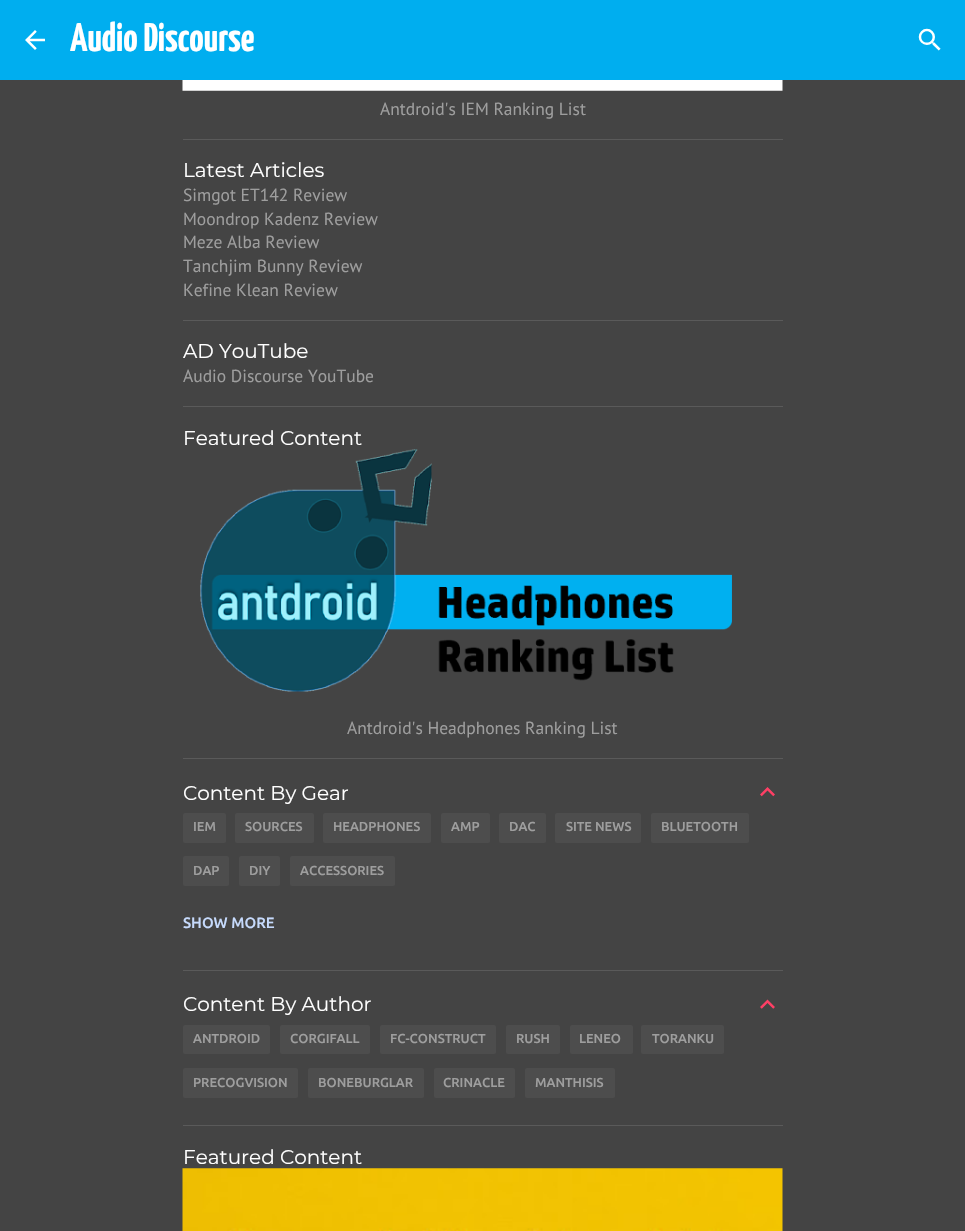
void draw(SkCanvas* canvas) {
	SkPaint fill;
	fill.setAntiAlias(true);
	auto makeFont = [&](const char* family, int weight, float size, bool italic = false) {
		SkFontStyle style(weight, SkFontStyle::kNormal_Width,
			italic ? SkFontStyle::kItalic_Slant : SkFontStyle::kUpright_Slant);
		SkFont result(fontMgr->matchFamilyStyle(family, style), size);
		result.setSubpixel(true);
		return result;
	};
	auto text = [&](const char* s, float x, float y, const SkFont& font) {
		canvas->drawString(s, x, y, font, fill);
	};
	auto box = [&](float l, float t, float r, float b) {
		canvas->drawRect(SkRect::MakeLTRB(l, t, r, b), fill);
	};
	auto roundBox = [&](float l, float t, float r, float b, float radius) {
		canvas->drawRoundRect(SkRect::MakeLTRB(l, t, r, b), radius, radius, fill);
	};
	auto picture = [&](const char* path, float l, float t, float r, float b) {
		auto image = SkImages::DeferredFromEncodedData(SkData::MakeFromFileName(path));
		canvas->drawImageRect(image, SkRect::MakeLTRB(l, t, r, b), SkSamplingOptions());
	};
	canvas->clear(0xFF444444);
	fill.setColor(0xFF00AEEF);
	box(0, 0, 965, 80);
	picture("image0.png", 25, 30, 45, 50);
	picture("image1.png", 918, 28, 941, 51);
	picture("image2.png", 182, 80, 783, 91);
	fill.setColor(0xFF5A5A5A);
	box(183, 139, 783, 140);
	box(183, 320, 783, 321);
	box(183, 406, 783, 407);
	picture("image3.png", 200, 449, 732, 692);
	box(183, 758, 783, 759);
	picture("image4.png", 760, 787, 775, 797);
	fill.setColor(0xFF4D4D4D);
	roundBox(183, 813, 226, 843, 2.5f);
	roundBox(235, 813, 314, 843, 2.5f);
	roundBox(323, 813, 431, 843, 2.5f);
	roundBox(441, 813, 490, 843, 2.5f);
	roundBox(499, 813, 546, 843, 2.5f);
	roundBox(555, 813, 641, 843, 2.5f);
	roundBox(651, 813, 749, 843, 2.5f);
	roundBox(183, 856, 229, 886, 2.5f);
	roundBox(239, 856, 280, 886, 2.5f);
	roundBox(290, 856, 395, 886, 2.5f);
	fill.setColor(0xFF5A5A5A);
	box(183, 970, 783, 971);
	picture("image5.png", 760, 999, 775, 1009);
	fill.setColor(0xFF4D4D4D);
	roundBox(183, 1025, 270, 1054, 2.5f);
	roundBox(280, 1025, 370, 1054, 2.5f);
	roundBox(380, 1025, 496, 1054, 2.5f);
	roundBox(506, 1025, 560, 1054, 2.5f);
	roundBox(570, 1025, 633, 1054, 2.5f);
	roundBox(641, 1025, 724, 1054, 2.5f);
	roundBox(183, 1068, 298, 1098, 2.5f);
	roundBox(308, 1068, 424, 1098, 2.5f);
	roundBox(434, 1068, 515, 1098, 2.5f);
	roundBox(525, 1068, 615, 1098, 2.5f);
	fill.setColor(0xFF5A5A5A);
	box(183, 1125, 783, 1126);
	picture("image6.png", 182, 1168, 783, 1231);
	auto font1 = makeFont("Yanone Kaffeesatz", 700, 40);
	fill.setColor(0xFFFFFFFF);
	text("Audio Discourse", 70, 51, font1);
	auto font2 = makeFont("PT Sans", 400, 17.5f);
	fill.setColor(0xFF9E9E9E);
	text("Antdroid's IEM Ranking List", 380, 115, font2);
	auto font3 = makeFont("Montserrat", 100, 20);
	fill.setColor(0xFFFFFFFF);
	text("Latest Articles", 183, 177, font3);
	fill.setColor(0xFF9E9E9E);
	text("Simgot ET142 Review", 183, 201, font2);
	text("Moondrop Kadenz Review", 183, 225, font2);
	text("Meze Alba Review", 183, 248, font2);
	text("Tanchjim Bunny Review", 183, 272, font2);
	text("Kefine Klean Review", 183, 296, font2);
	fill.setColor(0xFFFFFFFF);
	text("AD YouTube", 183, 358, font3);
	fill.setColor(0xFF9E9E9E);
	text("Audio Discourse YouTube", 183, 382, font2);
	fill.setColor(0xFFFFFFFF);
	text("Featured Content", 183, 445, font3);
	fill.setColor(0xFF9E9E9E);
	text("Antdroid's Headphones Ranking List", 347, 734, font2);
	fill.setColor(0xFFFFFFFF);
	text("Content By Gear", 183, 800, font3);
	auto font4 = makeFont("Ubuntu", 500, 13);
	fill.setColor(0xFF9E9E9E);
	text("IEM", 193, 831, font4);
	text("SOURCES", 245, 831, font4);
	text("HEADPHONES", 333, 831, font4);
	text("AMP", 451, 831, font4);
	text("DAC", 509, 831, font4);
	text("SITE NEWS", 566, 831, font4);
	text("BLUETOOTH", 661, 831, font4);
	text("DAP", 193, 875, font4);
	text("DIY", 249, 875, font4);
	text("ACCESSORIES", 300, 875, font4);
	auto font5 = makeFont("Ubuntu", 500, 15);
	fill.setColor(0xFFC6DAFC);
	text("SHOW MORE", 183, 928, font5);
	fill.setColor(0xFFFFFFFF);
	text("Content By Author", 183, 1011, font3);
	fill.setColor(0xFF9E9E9E);
	text("ANTDROID", 193, 1043, font4);
	text("CORGIFALL", 290, 1043, font4);
	text("FC-CONSTRUCT", 390, 1043, font4);
	text("RUSH", 516, 1043, font4);
	text("LENEO", 579, 1043, font4);
	text("TORANKU", 652, 1043, font4);
	text("PRECOGVISION", 193, 1087, font4);
	text("BONEBURGLAR", 318, 1087, font4);
	text("CRINACLE", 443, 1087, font4);
	text("MANTHISIS", 535, 1087, font4);
	fill.setColor(0xFFFFFFFF);
	text("Featured Content", 183, 1164, font3);
}
